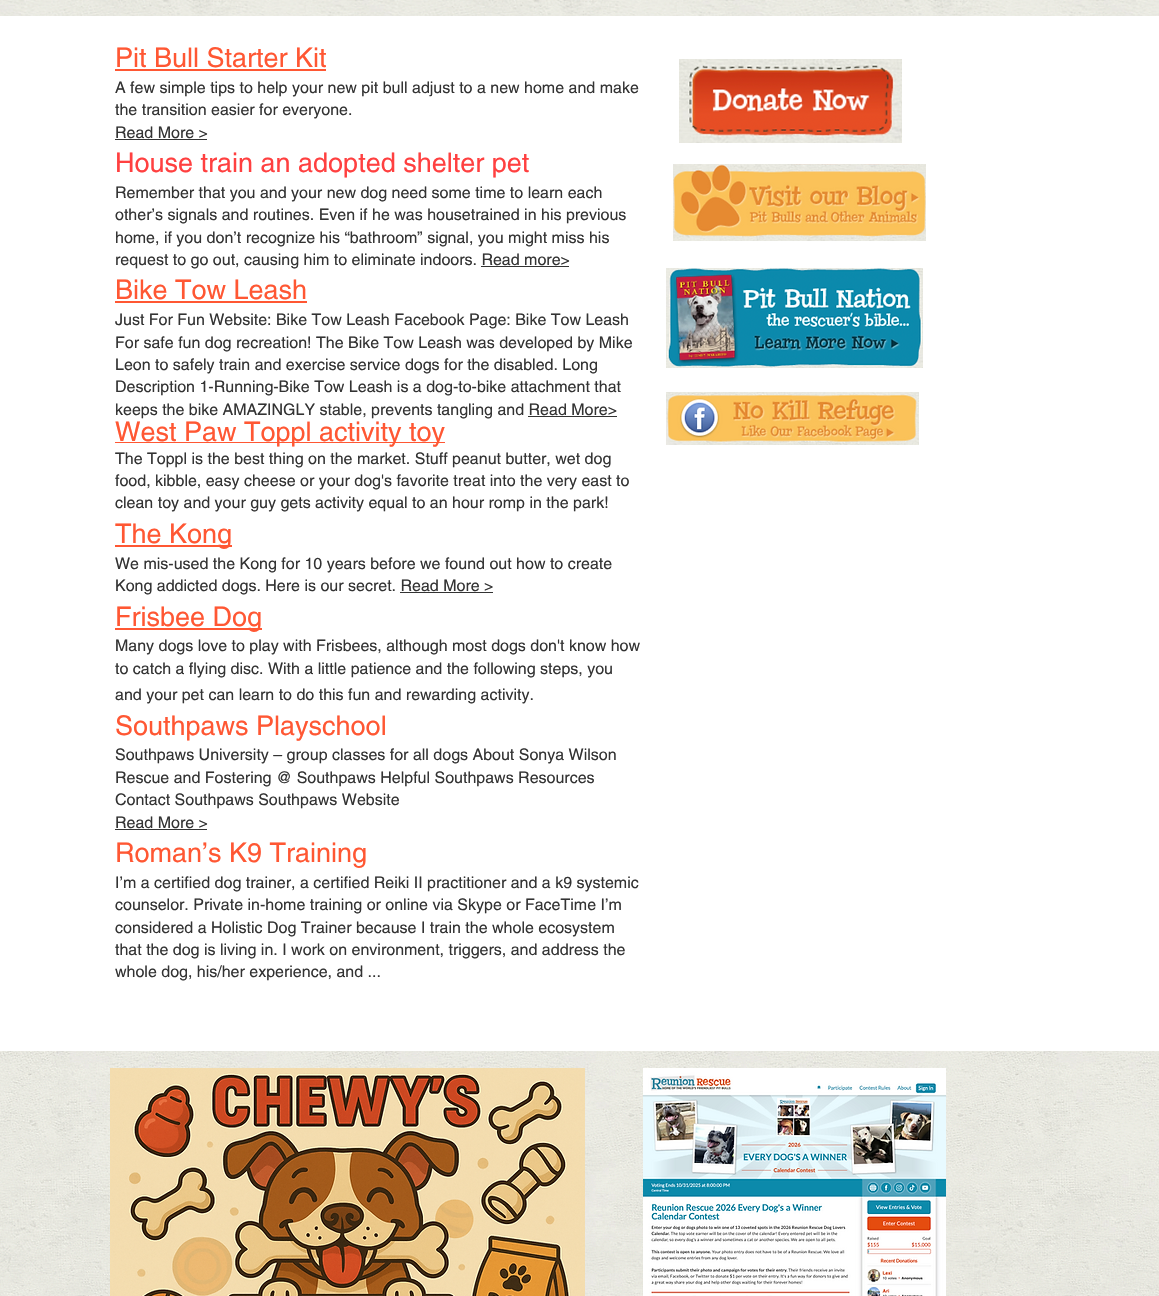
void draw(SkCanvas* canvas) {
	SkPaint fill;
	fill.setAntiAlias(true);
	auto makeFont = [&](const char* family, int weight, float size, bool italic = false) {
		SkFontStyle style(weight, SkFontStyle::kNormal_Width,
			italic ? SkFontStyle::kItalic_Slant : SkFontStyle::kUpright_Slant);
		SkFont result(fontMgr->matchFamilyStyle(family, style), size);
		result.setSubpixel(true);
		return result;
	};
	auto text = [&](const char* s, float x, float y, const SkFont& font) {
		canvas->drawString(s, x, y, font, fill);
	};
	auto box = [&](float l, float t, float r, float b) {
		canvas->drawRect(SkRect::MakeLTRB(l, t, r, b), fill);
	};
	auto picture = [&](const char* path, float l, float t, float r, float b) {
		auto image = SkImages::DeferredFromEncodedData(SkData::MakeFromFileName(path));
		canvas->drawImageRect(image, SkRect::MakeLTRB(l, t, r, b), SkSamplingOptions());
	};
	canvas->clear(0xFFFFFFFF);
	picture("image0.png", 0, 0, 1159, 16);
	fill.setColor(0xFFFF5733);
	box(115, 69, 326, 71);
	fill.setColor(0xFF333333);
	box(115, 139, 207, 140);
	box(481, 266, 569, 267);
	fill.setColor(0xFFFF5733);
	box(115, 301, 307, 303);
	fill.setColor(0xFF333333);
	box(528, 416, 617, 417);
	fill.setColor(0xFFFF5733);
	box(115, 442, 445, 443);
	box(115, 545, 232, 547);
	fill.setColor(0xFF333333);
	box(400, 592, 493, 593);
	fill.setColor(0xFFFF5733);
	box(115, 628, 262, 630);
	fill.setColor(0xFF333333);
	box(115, 829, 207, 830);
	picture("image1.png", 679, 59, 902, 143);
	picture("image2.png", 673, 164, 926, 241);
	picture("image3.png", 666, 268, 923, 368);
	picture("image4.png", 666, 392, 919, 445);
	picture("image5.png", 0, 1051, 1159, 1296);
	picture("image6.png", 110, 1068, 585, 1296);
	picture("image7.png", 643, 1068, 946, 1296);
	auto font1 = makeFont("helvetica", 400, 27);
	fill.setColor(0xFFFF5733);
	text("Pit Bull Starter Kit", 115, 67, font1);
	auto font2 = makeFont("helvetica", 400, 16);
	fill.setColor(0xFF333333);
	text("A few simple tips to help your new pit bull adjust to a new home and make", 115, 93, font2);
	text("the transition easier for everyone.", 115, 115, font2);
	text("Read More >", 115, 138, font2);
	fill.setColor(0xFFFF4040);
	text("House train an adopted shelter pet", 115, 172, font1);
	fill.setColor(0xFF333333);
	text("Remember that you and your new dog need some time to learn each", 115, 198, font2);
	text("other’s signals and routines. Even if he was housetrained in his previous", 115, 220, font2);
	text("home, if you don’t recognize his “bathroom” signal, you might miss his", 115, 243, font2);
	text("request to go out, causing him to eliminate indoors. Read more>", 115, 265, font2);
	fill.setColor(0xFFFF5733);
	text("Bike Tow Leash", 115, 299, font1);
	fill.setColor(0xFF333333);
	text("Just For Fun Website: Bike Tow Leash Facebook Page: Bike Tow Leash", 115, 325, font2);
	text("For safe fun dog recreation! The Bike Tow Leash was developed by Mike", 115, 348, font2);
	text("Leon to safely train and exercise service dogs for the disabled. Long", 115, 370, font2);
	text("Description 1-Running-Bike Tow Leash is a dog-to-bike attachment that", 115, 392, font2);
	text("keeps the bike AMAZINGLY stable, prevents tangling and Read More>", 115, 415, font2);
	fill.setColor(0xFFFF5733);
	text("West Paw Toppl activity toy", 115, 441, font1);
	fill.setColor(0xFF333333);
	text("The Toppl is the best thing on the market. Stuff peanut butter, wet dog", 115, 464, font2);
	text("food, kibble, easy cheese or your dog's favorite treat into the very east to", 115, 486, font2);
	text("clean toy and your guy gets activity equal to an hour romp in the park!", 115, 508, font2);
	fill.setColor(0xFFFF5733);
	text("The Kong", 115, 543, font1);
	fill.setColor(0xFF333333);
	text("We mis-used the Kong for 10 years before we found out how to create", 115, 569, font2);
	text("Kong addicted dogs. Here is our secret. Read More >", 115, 591, font2);
	fill.setColor(0xFFFF5733);
	text("Frisbee Dog", 115, 626, font1);
	fill.setColor(0xFF333333);
	text("Many dogs love to play with Frisbees, although most dogs don't know how", 115, 651, font2);
	text("to catch a flying disc. With a little patience and the following steps, you", 115, 674, font2);
	text("and your pet can learn to do this fun and rewarding activity.", 115, 700, font2);
	fill.setColor(0xFFFF5733);
	text("Southpaws Playschool", 115, 735, font1);
	fill.setColor(0xFF333333);
	text("Southpaws University – group classes for all dogs About Sonya Wilson", 115, 760, font2);
	text("Rescue and Fostering @ Southpaws Helpful Southpaws Resources", 115, 783, font2);
	text("Contact Southpaws Southpaws Website", 115, 805, font2);
	text("Read More >", 115, 828, font2);
	fill.setColor(0xFFFF5733);
	text("Roman’s K9 Training", 115, 862, font1);
	fill.setColor(0xFF333333);
	text("I’m a certified dog trainer, a certified Reiki II practitioner and a k9 systemic", 115, 888, font2);
	text("counselor. Private in-home training or online via Skype or FaceTime I’m", 115, 910, font2);
	text("considered a Holistic Dog Trainer because I train the whole ecosystem", 115, 933, font2);
	text("that the dog is living in. I work on environment, triggers, and address the", 115, 955, font2);
	text("whole dog, his/her experience, and ...", 115, 977, font2);
}
